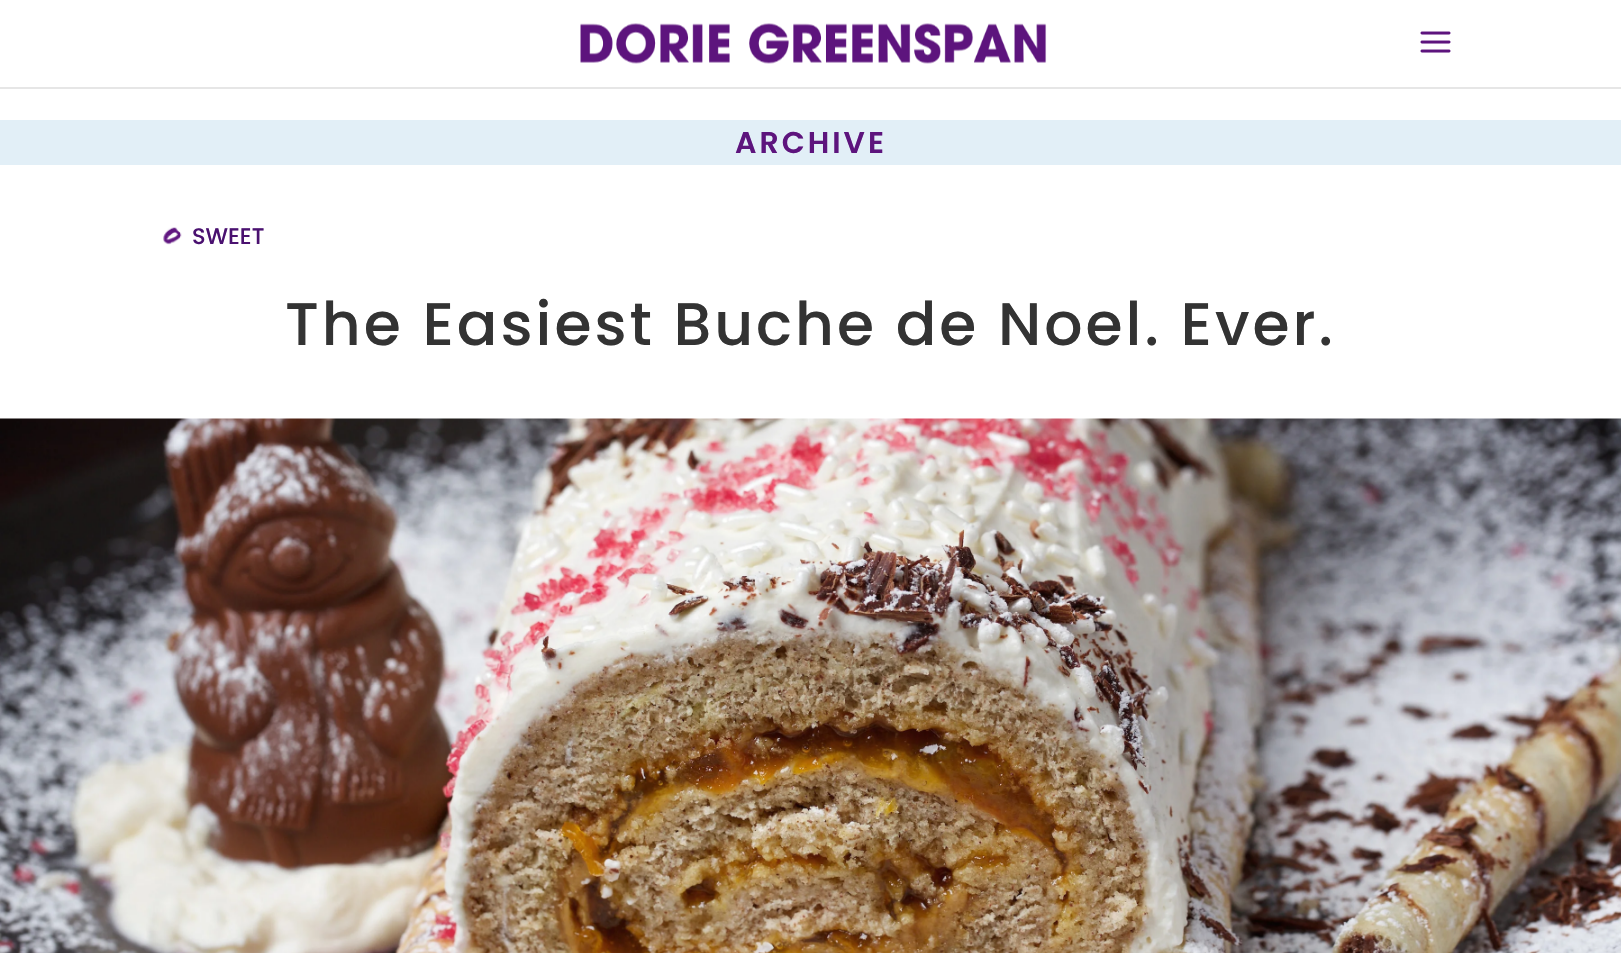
void draw(SkCanvas* canvas) {
	SkPaint fill;
	fill.setAntiAlias(true);
	auto makeFont = [&](const char* family, int weight, float size, bool italic = false) {
		SkFontStyle style(weight, SkFontStyle::kNormal_Width,
			italic ? SkFontStyle::kItalic_Slant : SkFontStyle::kUpright_Slant);
		SkFont result(fontMgr->matchFamilyStyle(family, style), size);
		result.setSubpixel(true);
		return result;
	};
	auto text = [&](const char* s, float x, float y, const SkFont& font) {
		canvas->drawString(s, x, y, font, fill);
	};
	auto spacedText = [&](const char* s, float x, float y, const SkFont& font, const SkPaint& ink, float letter, float word) {
		std::vector<SkGlyphID> glyphs(font.countText(s, strlen(s), SkTextEncoding::kUTF8));
		std::vector<float> xs(glyphs.size());
		font.textToGlyphs(s, strlen(s), SkTextEncoding::kUTF8, glyphs);
		font.getXPos(glyphs, xs, x);
		float extra = 0;
		for (size_t i = 0; i < glyphs.size(); i++) {
			xs[i] += extra;
			extra += letter + word * (glyphs[i] == font.unicharToGlyph(' '));
		}
		canvas->drawTextBlob(SkTextBlob::MakeFromPosHGlyphs(glyphs, xs, y, font), 0, 0, ink);
	};
	auto box = [&](float l, float t, float r, float b) {
		canvas->drawRect(SkRect::MakeLTRB(l, t, r, b), fill);
	};
	auto picture = [&](const char* path, float l, float t, float r, float b) {
		auto image = SkImages::DeferredFromEncodedData(SkData::MakeFromFileName(path));
		canvas->drawImageRect(image, SkRect::MakeLTRB(l, t, r, b), SkSamplingOptions());
	};
	canvas->clear(0xFFFFFFFF);
	fill.setColor(0xFFE6E6E6);
	canvas->drawPath(SkPathBuilder().moveTo(0, 87).lineTo(0, 89).lineTo(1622, 89).lineTo(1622, 2).lineTo(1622, 87).close().detach(), fill);
	picture("image0.png", 580, 23, 1047, 64);
	picture("image1.png", 1420, 31, 1451, 53);
	fill.setColor(0xFFE2EFF7);
	box(0, 120, 1621, 165);
	picture("image2.png", 163, 227, 182, 245);
	picture("image3.png", 0, 418, 1621, 953);
	auto font1 = makeFont("Poppins", 600, 30);
	fill.setColor(0xFF5D147D);
	spacedText("ARCHIVE", 735, 153, font1, fill, 3, 0);
	auto font2 = makeFont("Poppins", 500, 22.5f);
	fill.setColor(0xFF4A1170);
	text("SWEET", 192, 244, font2);
	auto font3 = makeFont("Poppins", 500, 60);
	fill.setColor(0xFF333333);
	spacedText("The Easiest Buche de Noel. Ever.", 285, 345, font3, fill, 3, 0);
}
